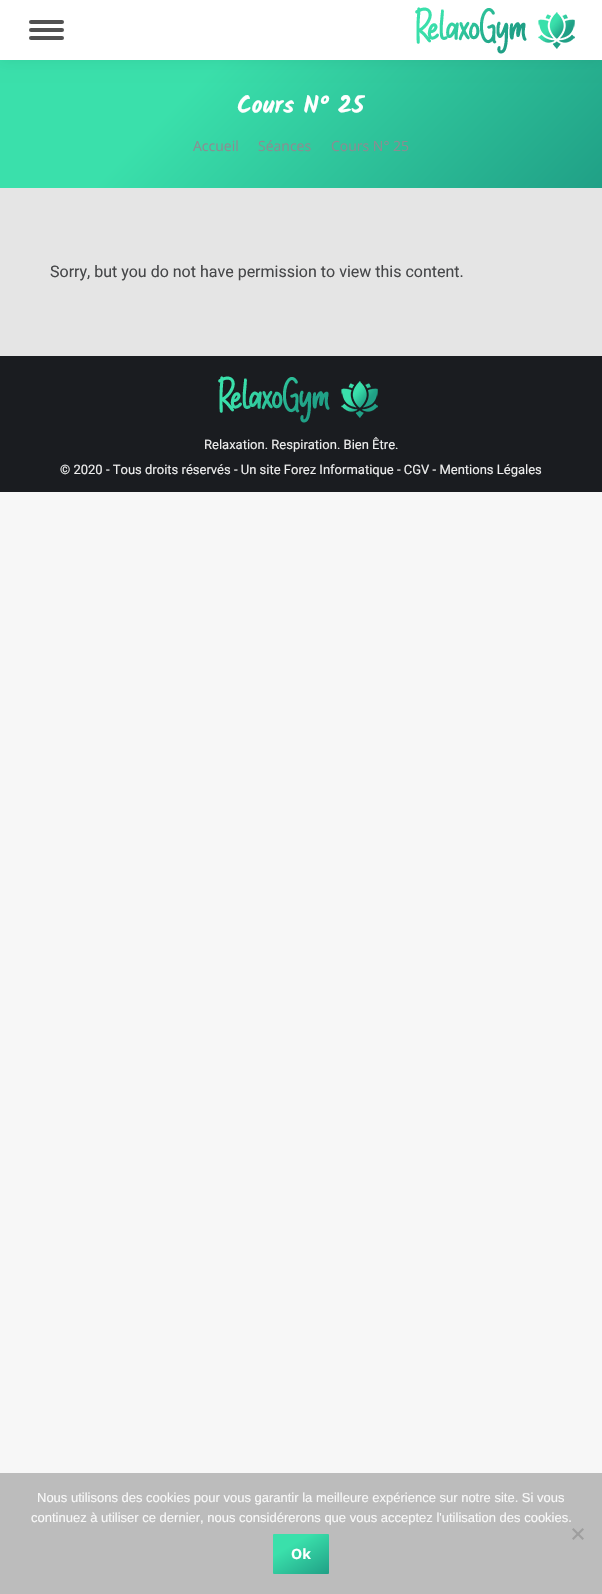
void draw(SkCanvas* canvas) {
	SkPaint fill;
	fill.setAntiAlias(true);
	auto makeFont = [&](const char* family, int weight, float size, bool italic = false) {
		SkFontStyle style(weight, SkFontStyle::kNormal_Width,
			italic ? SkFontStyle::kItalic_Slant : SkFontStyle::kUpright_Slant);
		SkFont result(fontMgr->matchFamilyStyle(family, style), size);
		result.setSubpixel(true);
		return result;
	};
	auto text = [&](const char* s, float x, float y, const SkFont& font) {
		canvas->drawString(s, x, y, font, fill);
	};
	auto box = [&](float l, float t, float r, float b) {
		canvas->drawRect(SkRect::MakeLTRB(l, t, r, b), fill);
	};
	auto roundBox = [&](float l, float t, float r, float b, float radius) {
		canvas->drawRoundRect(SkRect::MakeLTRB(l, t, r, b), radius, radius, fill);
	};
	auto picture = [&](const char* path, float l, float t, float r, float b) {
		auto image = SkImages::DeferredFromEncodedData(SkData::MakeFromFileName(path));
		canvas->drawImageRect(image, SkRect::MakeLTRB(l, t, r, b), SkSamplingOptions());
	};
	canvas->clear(0xFFF7F7F7);
	fill.setColor(0xFFE5E5E5);
	box(0, 188, 602, 356);
	{
		const SkColor colors[] = {0xFF3AE0AB, 0xFF20A086};
		const float stops[] = {0.3f, 1};
		const SkPoint ends[] = {{118, -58}, {484, 307}};
		fill.setShader(SkGradientShader::MakeLinear(ends, colors, stops, 2, SkTileMode::kClamp));
		fill.setAlpha(255);
	}
	box(0, 60, 602, 188);
	fill.setShader(nullptr);
	fill.setColor(0x12000000);
	fill.setMaskFilter(SkMaskFilter::MakeBlur(kNormal_SkBlurStyle, 7.5f));
	canvas->drawRect(SkRect::MakeLTRB(-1, -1, 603, 61), fill);
	fill.setMaskFilter(nullptr);
	fill.setColor(0xFFFFFFFF);
	box(0, 0, 602, 60);
	fill.setColor(0xFF515151);
	roundBox(29, 20, 64, 24, 2);
	roundBox(29, 28, 64, 32, 2);
	roundBox(29, 36, 64, 40, 2);
	picture("image0.png", 415, 7, 575, 54);
	fill.setColor(0xFF1A1C20);
	box(0, 356, 602, 492);
	picture("image1.png", 218, 376, 378, 423);
	fill.setColor(0xFFBCBCBC);
	box(0, 1473, 602, 1594);
	fill.setColor(0xFF9E9E9E);
	canvas->drawPath(SkPathBuilder().moveTo(582.5f, 1528).lineTo(584, 1529.5f).lineTo(573.5f, 1540).lineTo(572, 1538.5f).close().detach(), fill);
	canvas->drawPath(SkPathBuilder().moveTo(572, 1529.5f).lineTo(573.5f, 1528).lineTo(584, 1538.5f).lineTo(582.5f, 1540).close().detach(), fill);
	{
		const SkColor colors[] = {0xFF3AE0AB, 0xFF20A086};
		const float stops[] = {0.3f, 1};
		const SkPoint ends[] = {{285, 1527}, {317, 1581}};
		fill.setShader(SkGradientShader::MakeLinear(ends, colors, stops, 2, SkTileMode::kClamp));
		fill.setAlpha(255);
	}
	roundBox(273, 1534, 329, 1574, 1);
	canvas->save();
	canvas->clipRect(SkRect::MakeLTRB(237, 90, 365, 124));
	auto font1 = makeFont("Kalam", 700, 24);
	fill.setShader(nullptr);
	fill.setColor(0xFFFFFFFF);
	text("Cours N° 25", 237, 113, font1);
	canvas->restore();
	auto font2 = makeFont("Open Sans", 400, 14);
	fill.setColor(0xFF8C8C91);
	text("Accueil", 193, 151, font2);
	text("Séances", 258, 151, font2);
	text("Cours N° 25", 331, 151, font2);
	auto font3 = makeFont("Roboto", 400, 16);
	fill.setColor(0xFF464749);
	text("Sorry, but you do not have permission to view this content.", 50, 277, font3);
	auto font4 = makeFont("Roboto", 400, 13);
	fill.setColor(0xFFEEEEEE);
	text("Relaxation. Respiration. Bien Être.", 204, 449, font4);
	text("© 2020 - Tous droits réservés - Un site Forez Informatique - CGV - Mentions Légales", 60, 474, font4);
	auto font5 = makeFont("Liberation Sans", 400, 13);
	fill.setColor(0xFFF9F9F9);
	text("Nous utilisons des cookies pour vous garantir la meilleure expérience sur notre site. Si vous", 37, 1502, font5);
	text("continuez à utiliser ce dernier, nous considérerons que vous acceptez l'utilisation des cookies.", 31, 1522, font5);
	auto font6 = makeFont("Open Sans", 700, 14);
	fill.setColor(0xFFFFFFFF);
	text("Ok", 291, 1559, font6);
}
